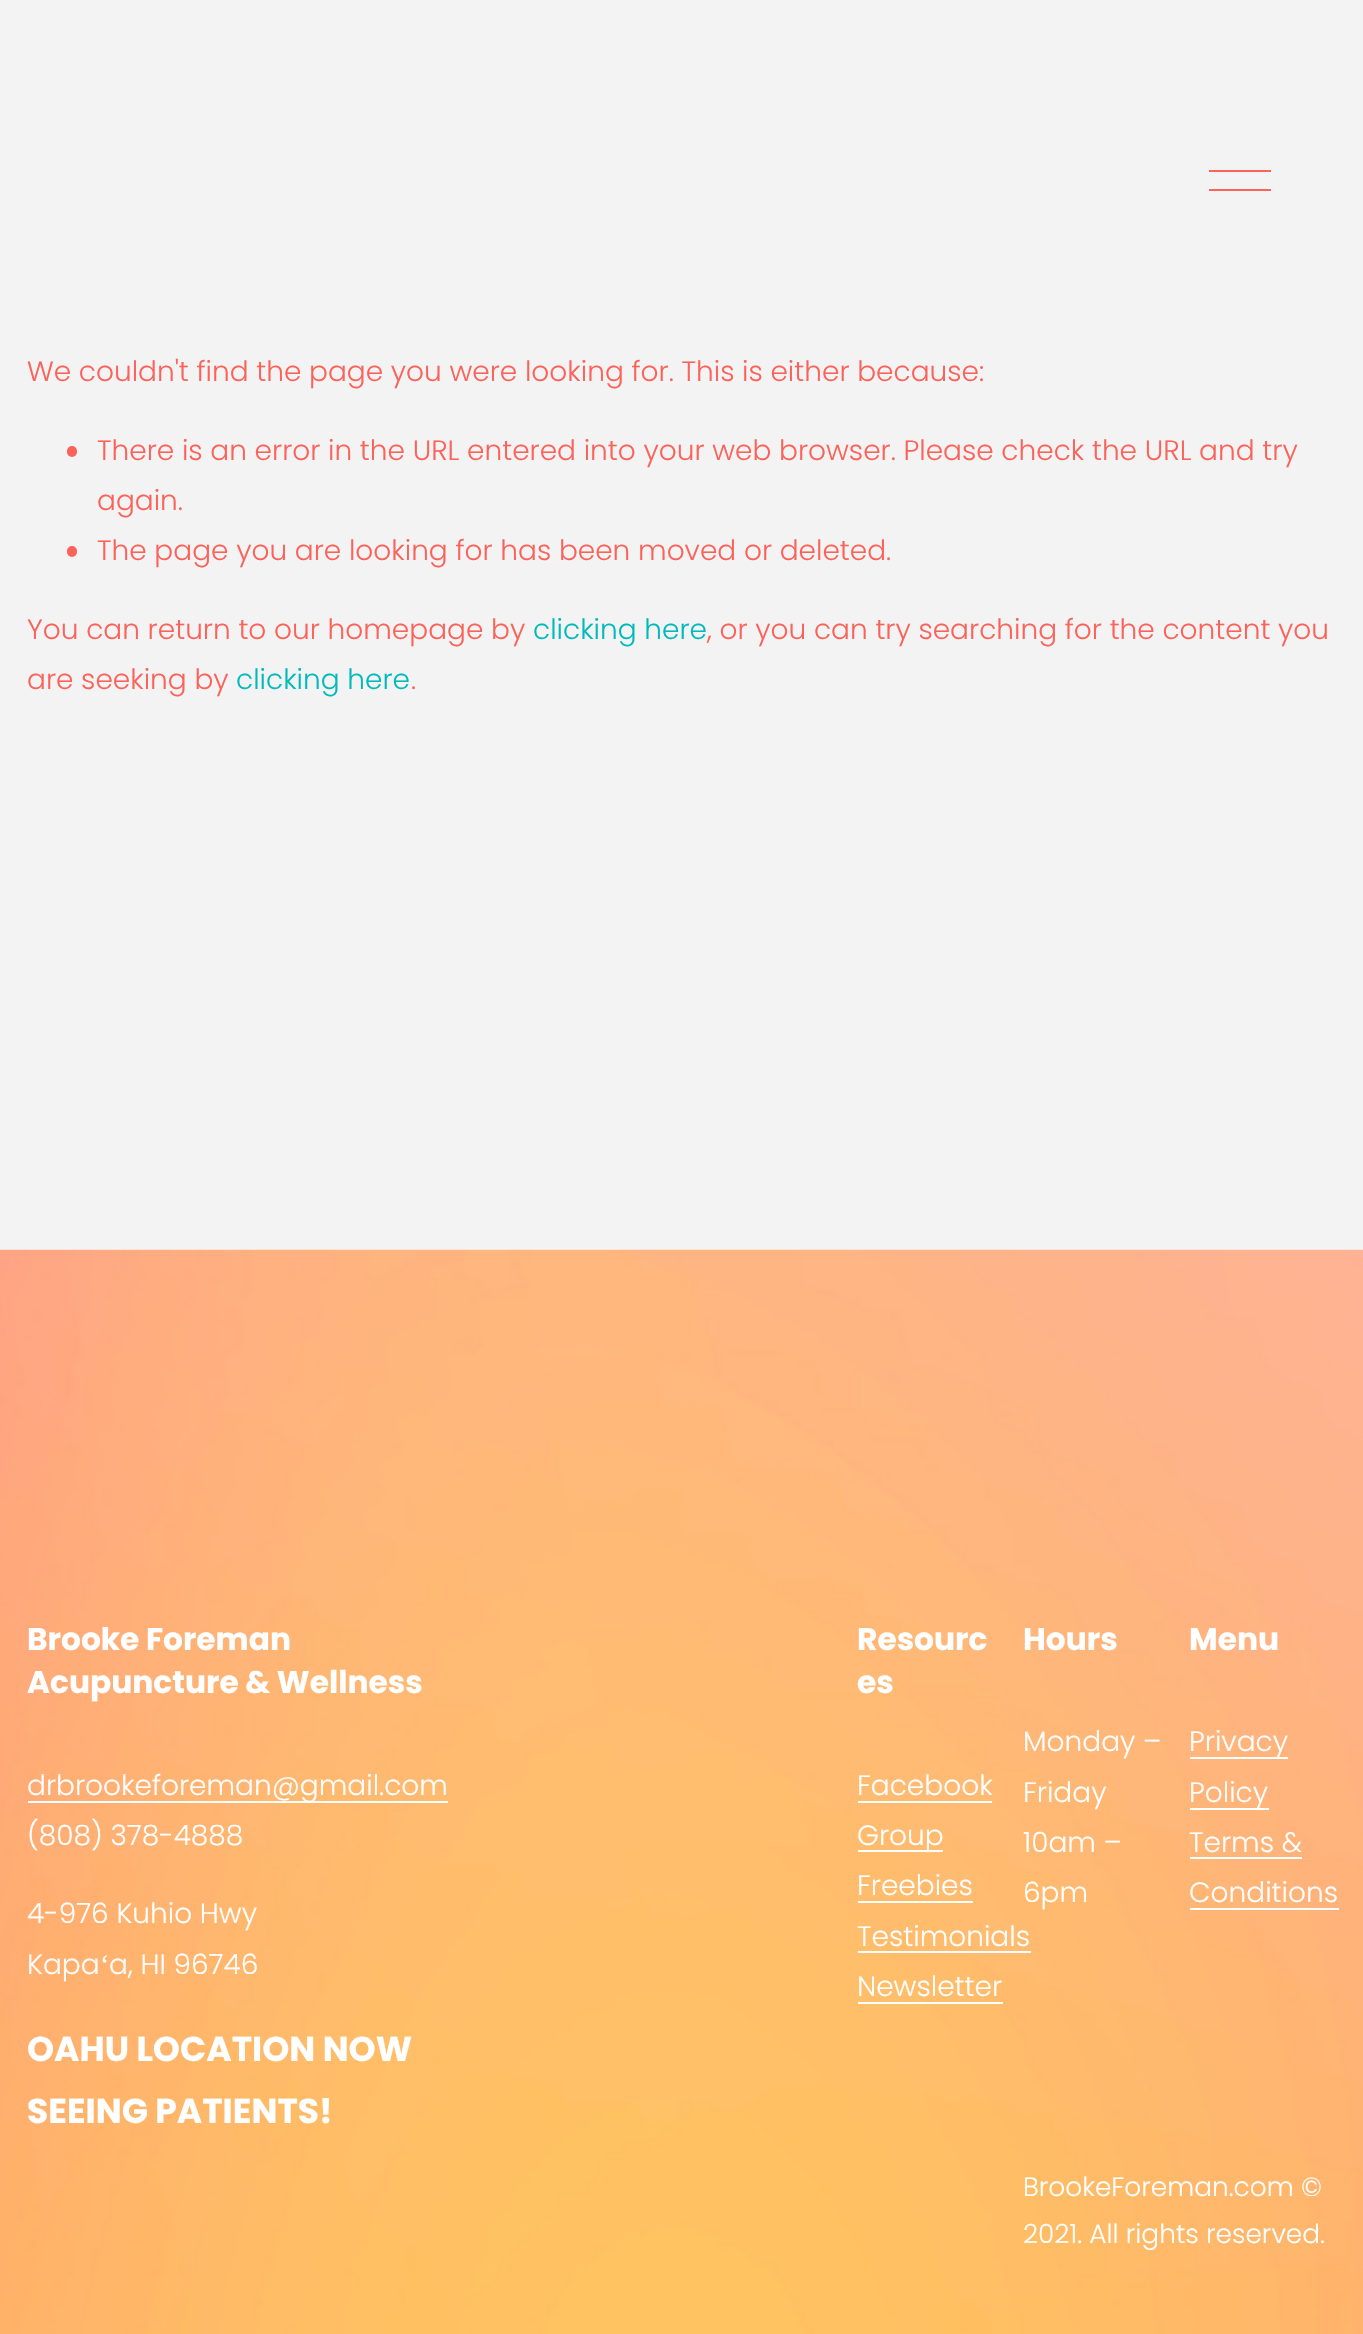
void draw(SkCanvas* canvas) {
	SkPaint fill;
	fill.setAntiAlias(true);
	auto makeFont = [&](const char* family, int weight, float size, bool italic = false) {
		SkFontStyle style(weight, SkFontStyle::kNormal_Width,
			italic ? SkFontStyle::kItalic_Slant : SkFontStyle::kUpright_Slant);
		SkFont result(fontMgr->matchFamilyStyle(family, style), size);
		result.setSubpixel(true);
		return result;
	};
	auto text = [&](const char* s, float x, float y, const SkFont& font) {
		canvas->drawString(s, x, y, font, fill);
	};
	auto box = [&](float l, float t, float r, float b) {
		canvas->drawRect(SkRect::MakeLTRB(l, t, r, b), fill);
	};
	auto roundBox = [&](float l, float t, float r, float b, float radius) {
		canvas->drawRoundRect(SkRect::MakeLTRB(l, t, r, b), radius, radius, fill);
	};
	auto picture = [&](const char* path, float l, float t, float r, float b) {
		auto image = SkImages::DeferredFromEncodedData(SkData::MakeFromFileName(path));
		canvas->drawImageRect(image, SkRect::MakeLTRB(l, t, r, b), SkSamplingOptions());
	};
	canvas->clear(0xFFF3F3F3);
	fill.setColor(0xFFFC625A);
	box(1209, 170, 1271, 172);
	box(1209, 189, 1271, 191);
	roundBox(67, 446, 77, 457, 5);
	roundBox(67, 546, 77, 557, 5);
	picture("image0.png", 0, 1249, 1363, 2334);
	fill.setColor(0xFFFFFFFF);
	box(28, 1801, 448, 1803);
	box(858, 1801, 992, 1803);
	box(858, 1850, 943, 1852);
	box(858, 1901, 973, 1903);
	box(858, 1951, 1031, 1953);
	box(858, 2002, 1003, 2004);
	box(1190, 1757, 1288, 1759);
	box(1190, 1808, 1269, 1810);
	box(1190, 1857, 1302, 1859);
	box(1190, 1908, 1339, 1910);
	auto font1 = makeFont("Poppins", 300, 28);
	fill.setColor(0xFFFC625A);
	text("We couldn't find the page you were looking for. This is either because:", 27, 381, font1);
	text("There is an error in the URL entered into your web browser. Please check the URL and try", 97, 460, font1);
	text("again.", 97, 510, font1);
	text("The page you are looking for has been moved or deleted.", 97, 560, font1);
	text("You can return to our homepage by", 27, 639, font1);
	fill.setColor(0xFF01BABC);
	text("clicking here", 533, 639, font1);
	fill.setColor(0xFFFC625A);
	text(", or you can try searching for the content you", 707, 639, font1);
	text("are seeking by", 27, 689, font1);
	fill.setColor(0xFF01BABC);
	text("clicking here", 236, 689, font1);
	fill.setColor(0xFFFC625A);
	text(".", 411, 689, font1);
	auto font2 = makeFont("Poppins", 700, 31.25f);
	fill.setColor(0xFFFFFFFF);
	text("Brooke Foreman", 27, 1650, font2);
	text("Acupuncture & Wellness", 27, 1693, font2);
	text("drbrookeforeman@gmail.com", 27, 1795, font1);
	text("(808) 378-4888", 27, 1845, font1);
	text("4-976 Kuhio Hwy", 27, 1923, font1);
	text("Kapa", 27, 1974, font1);
	auto font3 = makeFont("Liberation Serif", 400, 28);
	text("ʻ", 100, 1974, font3);
	text("a, HI 96746", 109, 1974, font1);
	auto font4 = makeFont("Poppins", 700, 34.5f);
	text("OAHU LOCATION NOW", 27, 2061, font4);
	text("SEEING PATIENTS!", 27, 2123, font4);
	text("Resourc", 857, 1650, font2);
	text("es", 857, 1693, font2);
	text("Facebook", 857, 1795, font1);
	text("Group", 857, 1845, font1);
	text("Freebies", 857, 1895, font1);
	text("Testimonials", 857, 1946, font1);
	text("Newsletter", 857, 1996, font1);
	text("Hours", 1023, 1650, font2);
	text("Monday –", 1023, 1751, font1);
	text("Friday", 1023, 1802, font1);
	text("10am –", 1023, 1852, font1);
	text("6pm", 1023, 1902, font1);
	text("Menu", 1189, 1650, font2);
	text("Privacy", 1189, 1751, font1);
	text("Policy", 1189, 1802, font1);
	text("Terms &", 1189, 1852, font1);
	text("Conditions", 1189, 1902, font1);
	auto font5 = makeFont("Poppins", 300, 26.4f);
	text("BrookeForeman.com ©", 1023, 2196, font5);
	text("2021. All rights reserved.", 1023, 2243, font5);
}
